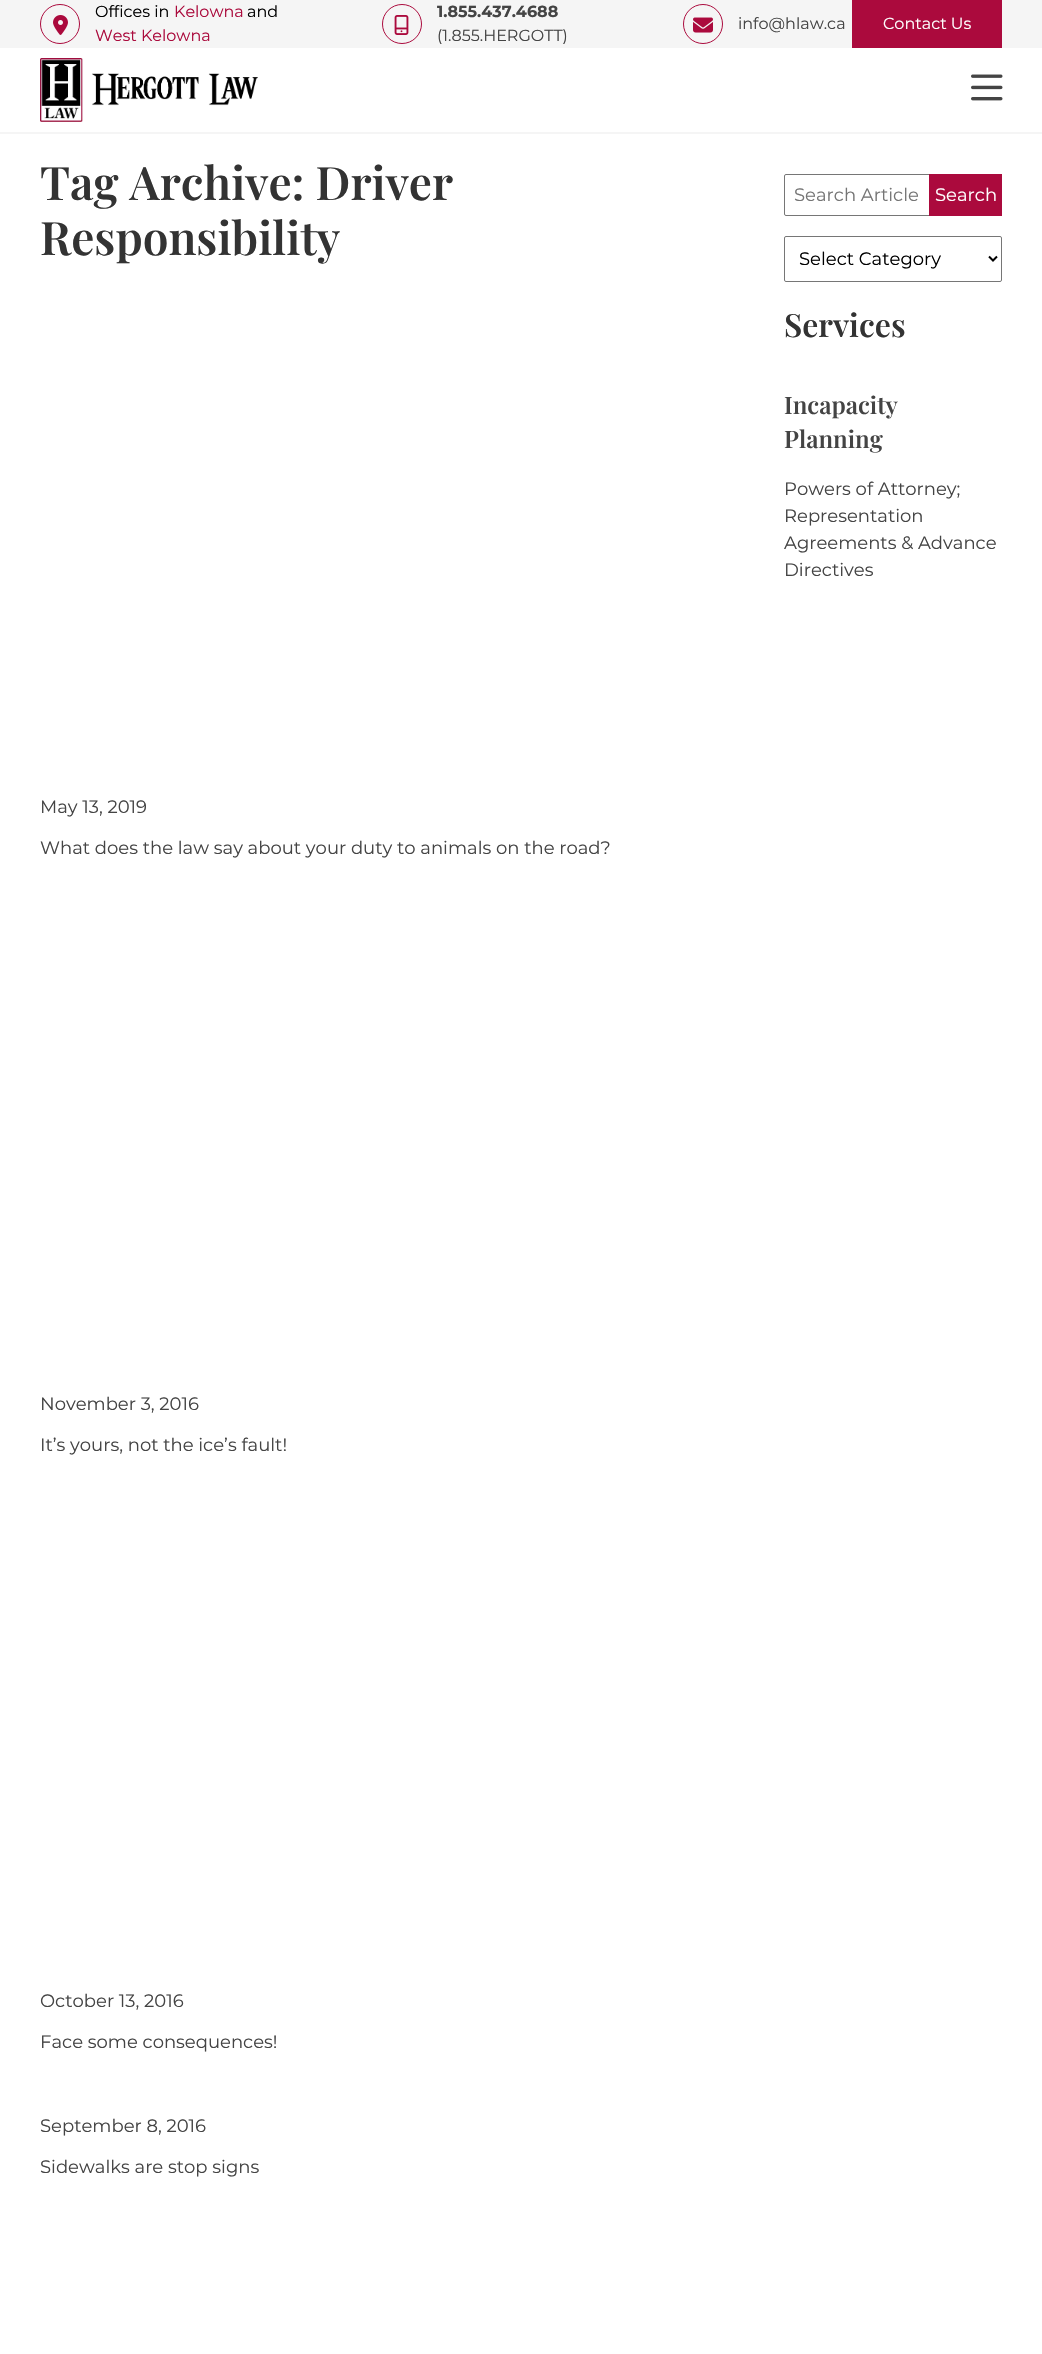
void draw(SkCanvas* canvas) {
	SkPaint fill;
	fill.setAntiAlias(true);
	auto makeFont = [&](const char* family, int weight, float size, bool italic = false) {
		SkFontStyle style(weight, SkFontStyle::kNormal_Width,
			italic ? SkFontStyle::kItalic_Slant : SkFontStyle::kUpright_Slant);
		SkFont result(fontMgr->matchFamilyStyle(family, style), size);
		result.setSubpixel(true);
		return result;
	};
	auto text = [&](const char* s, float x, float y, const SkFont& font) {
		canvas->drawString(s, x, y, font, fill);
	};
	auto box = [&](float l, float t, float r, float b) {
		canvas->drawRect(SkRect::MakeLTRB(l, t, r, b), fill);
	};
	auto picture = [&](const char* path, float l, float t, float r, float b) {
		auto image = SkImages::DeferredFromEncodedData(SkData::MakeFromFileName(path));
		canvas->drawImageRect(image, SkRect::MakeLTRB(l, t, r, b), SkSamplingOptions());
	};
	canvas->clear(0xFFFFFFFF);
	fill.setColor(0xFFF5F5F5);
	box(0, 0, 1042, 48);
	fill.setStyle(SkPaint::kStroke_Style);
	fill.setStrokeWidth(1);
	fill.setColor(0xFFAB0A3D);
	canvas->drawCircle(60, 24, 19.5f, fill);
	picture("image0.png", 53, 15, 68, 35);
	canvas->drawCircle(402, 24, 19.5f, fill);
	picture("image1.png", 394, 15, 409, 35);
	canvas->drawCircle(703, 24, 19.5f, fill);
	picture("image2.png", 693, 17, 713, 33);
	fill.setStyle(SkPaint::kFill_Style);
	box(852, 0, 1002, 48);
	fill.setColor(0xFFF5F5F5);
	box(0, 132, 1042, 134);
	picture("image3.png", 40, 58, 258, 122);
	picture("image4.png", 971, 74, 1003, 101);
	fill.setStyle(SkPaint::kStroke_Style);
	fill.setColor(0xFF767676);
	canvas->drawRoundRect(SkRect::MakeLTRB(784.5f, 174.5f, 934.5f, 215.5f), 1.5f, 1.5f, fill);
	fill.setStyle(SkPaint::kFill_Style);
	fill.setColor(0xFFAB0A3D);
	box(929, 174, 1002, 216);
	fill.setStyle(SkPaint::kStroke_Style);
	fill.setColor(0xFF767676);
	canvas->drawRoundRect(SkRect::MakeLTRB(784.5f, 236.5f, 1001.5f, 281.5f), 1.5f, 1.5f, fill);
	fill.setStrokeWidth(2);
	fill.setColor(0xFF000000);
	canvas->drawPath(SkPathBuilder().moveTo(989, 256.5f).lineTo(993, 260.5f).lineTo(997, 256.5f).detach(), fill);
	auto font1 = makeFont("Montserrat", 400, 16);
	fill.setStyle(SkPaint::kFill_Style);
	text("Offices in", 95, 17, font1);
	fill.setColor(0xFFAB0B3D);
	text("Kelowna", 174, 17, font1);
	fill.setColor(0xFF000000);
	text("and", 247, 17, font1);
	fill.setColor(0xFFAB0B3D);
	text("West Kelowna", 95, 41, font1);
	auto font2 = makeFont("Montserrat", 700, 16);
	fill.setColor(0xFF444444);
	text("1.855.437.4688", 437, 17, font2);
	text("(1.855.HERGOTT)", 437, 41, font1);
	text("info@hlaw.ca", 738, 29, font1);
	fill.setColor(0xFFFFFFFF);
	text("Contact Us", 883, 29, font1);
	auto font3 = makeFont("Playfair Display", 600, 46);
	fill.setColor(0xFF333333);
	text("Tag Archive: Driver", 40, 200, font3);
	text("Responsibility", 40, 255, font3);
	auto font4 = makeFont("Montserrat", 400, 18);
	fill.setColor(0xFF444444);
	text("May 13, 2019", 40, 813, font4);
	text("What does the law say about your duty to animals on the road?", 40, 854, font4);
	text("November 3, 2016", 40, 1410, font4);
	text("It’s yours, not the ice’s fault!", 40, 1451, font4);
	text("October 13, 2016", 40, 2007, font4);
	text("Face some consequences!", 40, 2048, font4);
	text("September 8, 2016", 40, 2132, font4);
	text("Sidewalks are stop signs", 40, 2173, font4);
	fill.setColor(0xFF757575);
	text("Search Article", 794, 201, font4);
	fill.setColor(0xFFFFFFFF);
	text("Search", 935, 201, font4);
	fill.setColor(0xFF000000);
	text("Select Category", 799, 265, font4);
	auto font5 = makeFont("Playfair Display", 600, 32);
	fill.setColor(0xFF333333);
	text("Services", 784, 337, font5);
	auto font6 = makeFont("Playfair Display", 600, 24);
	fill.setColor(0xFF444444);
	text("Incapacity", 784, 414, font6);
	text("Planning", 784, 448, font6);
	text("Powers of Attorney;", 784, 495, font4);
	text("Representation", 784, 522, font4);
	text("Agreements & Advance", 784, 549, font4);
	text("Directives", 784, 576, font4);
}
